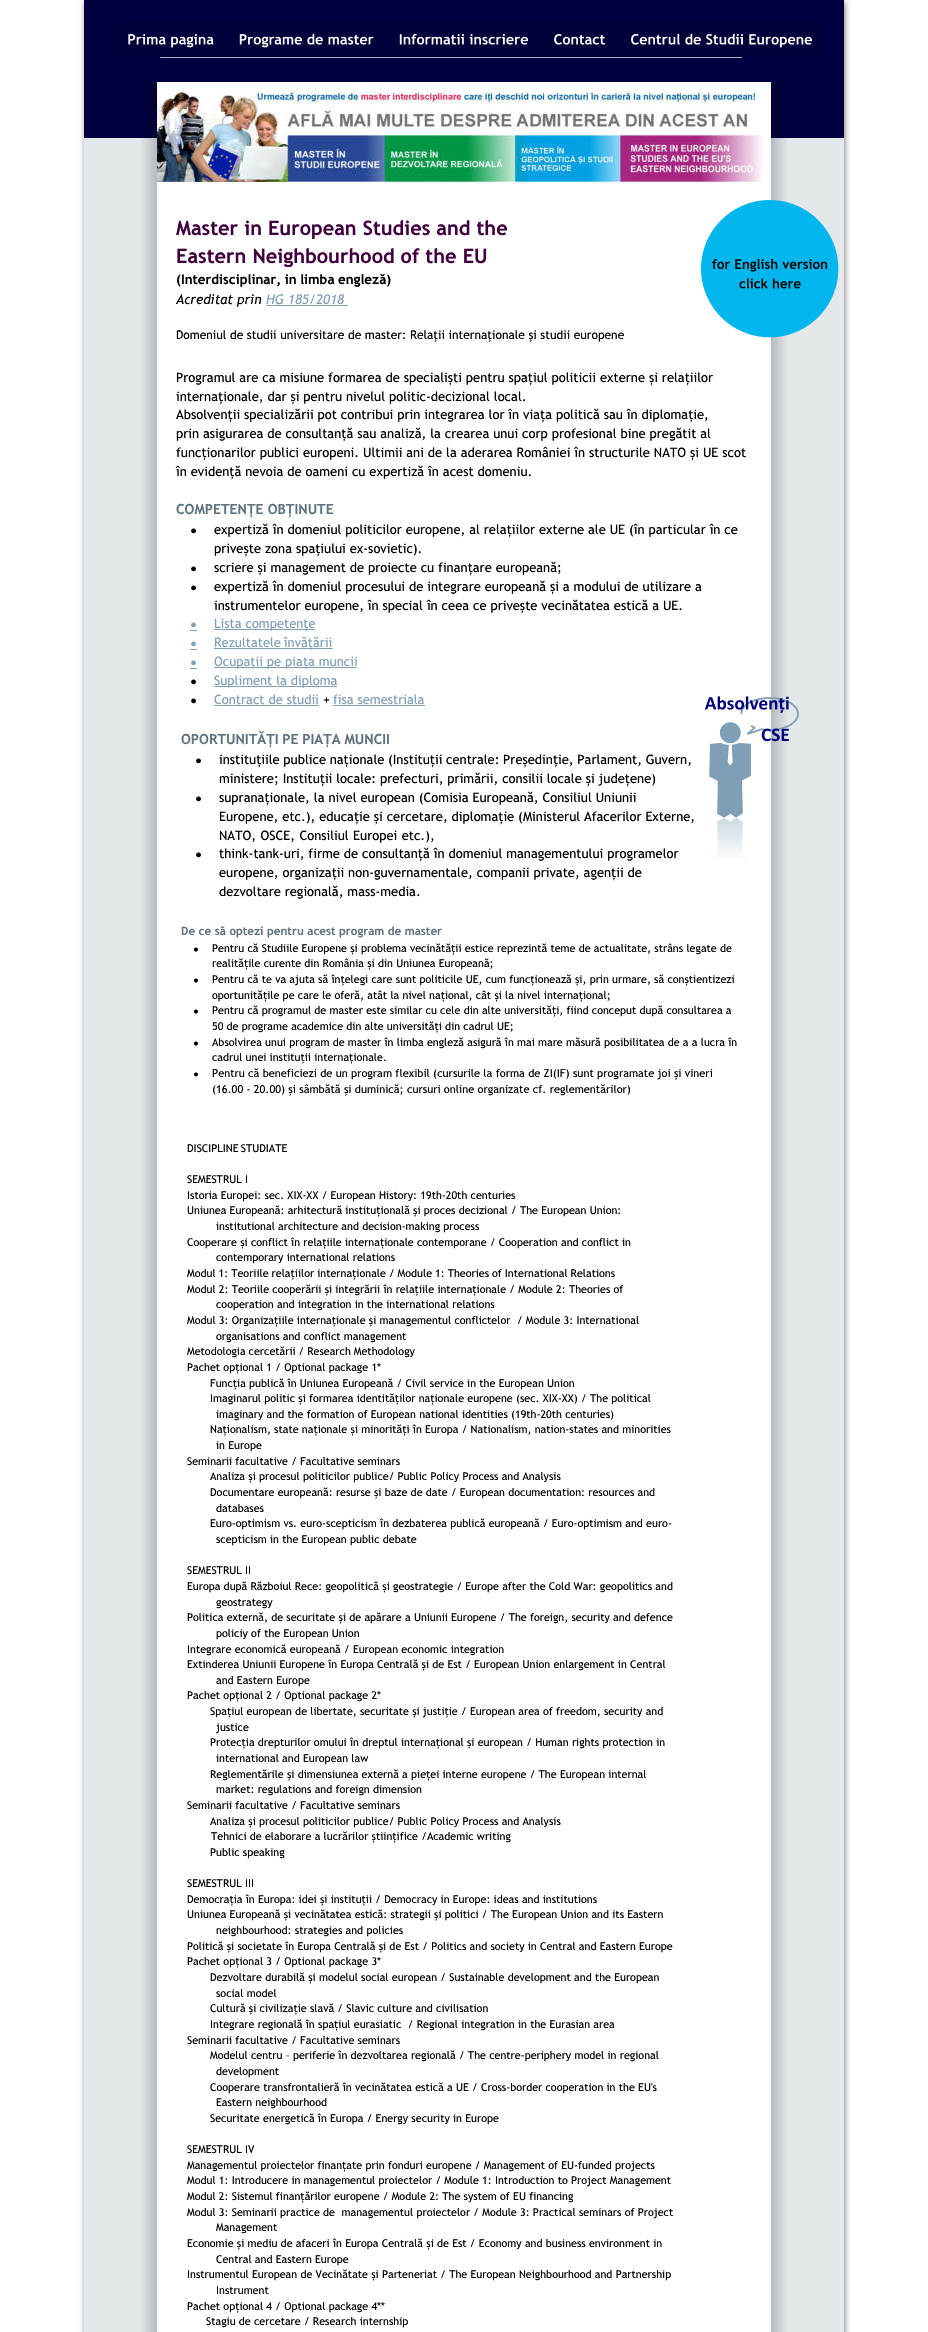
void draw(SkCanvas* canvas) {
	SkPaint fill;
	fill.setAntiAlias(true);
	auto makeFont = [&](const char* family, int weight, float size, bool italic = false) {
		SkFontStyle style(weight, SkFontStyle::kNormal_Width,
			italic ? SkFontStyle::kItalic_Slant : SkFontStyle::kUpright_Slant);
		SkFont result(fontMgr->matchFamilyStyle(family, style), size);
		result.setSubpixel(true);
		return result;
	};
	auto text = [&](const char* s, float x, float y, const SkFont& font) {
		canvas->drawString(s, x, y, font, fill);
	};
	auto spacedText = [&](const char* s, float x, float y, const SkFont& font, const SkPaint& ink, float letter, float word) {
		std::vector<SkGlyphID> glyphs(font.countText(s, strlen(s), SkTextEncoding::kUTF8));
		std::vector<float> xs(glyphs.size());
		font.textToGlyphs(s, strlen(s), SkTextEncoding::kUTF8, glyphs);
		font.getXPos(glyphs, xs, x);
		float extra = 0;
		for (size_t i = 0; i < glyphs.size(); i++) {
			xs[i] += extra;
			extra += letter + word * (glyphs[i] == font.unicharToGlyph(' '));
		}
		canvas->drawTextBlob(SkTextBlob::MakeFromPosHGlyphs(glyphs, xs, y, font), 0, 0, ink);
	};
	auto box = [&](float l, float t, float r, float b) {
		canvas->drawRect(SkRect::MakeLTRB(l, t, r, b), fill);
	};
	auto picture = [&](const char* path, float l, float t, float r, float b) {
		auto image = SkImages::DeferredFromEncodedData(SkData::MakeFromFileName(path));
		canvas->drawImageRect(image, SkRect::MakeLTRB(l, t, r, b), SkSamplingOptions());
	};
	canvas->clear(0xFFFFFFFF);
	fill.setColor(0x7D000000);
	fill.setMaskFilter(SkMaskFilter::MakeBlur(kNormal_SkBlurStyle, 3));
	canvas->drawRect(SkRect::MakeLTRB(85, 2, 845, 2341), fill);
	fill.setMaskFilter(nullptr);
	fill.setColor(0xFFE3E8EB);
	box(84, 138, 844, 2332);
	fill.setColor(0xFF000140);
	box(84, 0, 844, 138);
	picture("image0.png", 141, 82, 787, 2332);
	picture("image1.png", 115, 22, 227, 57);
	picture("image2.png", 227, 22, 387, 57);
	picture("image3.png", 387, 22, 541, 57);
	picture("image4.png", 541, 22, 618, 57);
	picture("image5.png", 618, 22, 825, 57);
	picture("image6.png", 160, 57, 743, 58);
	picture("image7.png", 157, 87, 764, 182);
	fill.setColor(0xFF7E9FB6);
	box(266, 305, 348, 306);
	picture("image8.png", 701, 200, 839, 338);
	box(190, 630, 197, 631);
	box(214, 629, 315, 630);
	box(190, 649, 197, 650);
	box(214, 648, 333, 649);
	box(190, 668, 197, 669);
	box(214, 667, 357, 668);
	box(214, 686, 337, 687);
	box(214, 705, 319, 706);
	box(333, 705, 425, 706);
	picture("image9.png", 705, 696, 799, 859);
	auto font1 = makeFont("Trebuchet MS", 700, 20);
	fill.setColor(0xFF40003F);
	text("Master in European Studies and the", 176, 235, font1);
	text("Eastern Neighbourhood of the EU", 176, 263, font1);
	auto font2 = makeFont("Trebuchet MS", 700, 13.4f);
	fill.setColor(0xFF000000);
	spacedText("(Interdisciplinar, in limba engleză)", 176, 284, font2, fill, 0, -0.5f);
	auto font3 = makeFont("Trebuchet MS", 400, 13.4f, true);
	text("Acreditat prin", 176, 304, font3);
	fill.setColor(0xFF7E9FB6);
	text("HG 185/2018", 266, 304, font3);
	auto font4 = makeFont("Trebuchet MS", 400, 12);
	fill.setColor(0xFF000000);
	text("Domeniul de studii universitare de master: Relaţii internaţionale şi studii europene", 176, 339, font4);
	auto font5 = makeFont("Trebuchet MS", 400, 13);
	text("Programul are ca misiune formarea de specialiști pentru spațiul politicii externe și relațiilor", 176, 382, font5);
	text("internaționale, dar și pentru nivelul politic-decizional local.", 176, 401, font5);
	text("Absolvenții specializării pot contribui prin integrarea lor în viața politică sau în diplomație,", 176, 419, font5);
	text("prin asigurarea de consultanță sau analiză, la crearea unui corp profesional bine pregătit al", 176, 438, font5);
	text("funcționarilor publici europeni. Ultimii ani de la aderarea României în structurile NATO și UE scot", 176, 457, font5);
	text("în evidență nevoia de oameni cu expertiză în acest domeniu.", 176, 476, font5);
	auto font6 = makeFont("Trebuchet MS", 700, 14);
	fill.setColor(0xFF5D717E);
	text("COMPETENȚE OBȚINUTE", 176, 514, font6);
	auto font7 = makeFont("Verdana", 400, 13);
	fill.setColor(0xFF000000);
	text("•", 190, 535, font7);
	text("expertiză în domeniul politicilor europene, al relațiilor externe ale UE (în particular în ce", 214, 534, font5);
	text("privește zona spațiului ex-sovietic).", 214, 553, font5);
	text("•", 190, 573, font7);
	text("scriere și management de proiecte cu finanțare europeană;", 214, 572, font5);
	text("•", 190, 592, font7);
	text("expertiză în domeniul procesului de integrare europeană și a modului de utilizare a", 214, 591, font5);
	text("instrumentelor europene, în special în ceea ce privește vecinătatea estică a UE.", 214, 610, font5);
	fill.setColor(0xFF7E9FB6);
	text("•", 190, 629, font7);
	text("Lista competențe", 214, 628, font5);
	text("•", 190, 648, font7);
	spacedText("Rezultatele învățării", 214, 647, font5, fill, 0, -1);
	text("•", 190, 667, font7);
	text("Ocupații pe piața muncii", 214, 666, font5);
	fill.setColor(0xFF000000);
	text("•", 190, 686, font7);
	fill.setColor(0xFF7E9FB6);
	text("Supliment la diploma", 214, 685, font5);
	fill.setColor(0xFF000000);
	text("•", 190, 705, font7);
	fill.setColor(0xFF7E9FB6);
	text("Contract de studii", 214, 704, font5);
	fill.setColor(0xFF000000);
	text("+", 323, 704, font5);
	fill.setColor(0xFF7E9FB6);
	text("fisa semestriala", 333, 704, font5);
	fill.setColor(0xFF5D717E);
	spacedText("OPORTUNITĂȚI PE PIAȚA MUNCII", 181, 744, font6, fill, 0, -0.5f);
	fill.setColor(0xFF000000);
	text("•", 195, 765, font7);
	spacedText("instituțiile publice naționale (Instituții centrale: Președinție, Parlament, Guvern,", 219, 764, font5, fill, 0, -0.25f);
	text("ministere; Instituții locale: prefecturi, primării, consilii locale și județene)", 219, 783, font5);
	text("•", 195, 803, font7);
	text("supranaționale, la nivel european (Comisia Europeană, Consiliul Uniunii", 219, 802, font5);
	text("Europene, etc.), educație și cercetare, diplomație (Ministerul Afacerilor Externe,", 219, 821, font5);
	spacedText("NATO, OSCE, Consiliul Europei etc.),", 219, 840, font5, fill, 0, 0.5f);
	text("•", 195, 859, font7);
	text("think-tank-uri, firme de consultanță în domeniul managementului programelor", 219, 858, font5);
	text("europene, organizații non-guvernamentale, companii private, agenții de", 219, 877, font5);
	text("dezvoltare regională, mass-media.", 219, 896, font5);
	auto font8 = makeFont("Trebuchet MS", 700, 11.6f);
	fill.setColor(0xFF5D717E);
	text("De ce să optezi pentru acest program de master", 181, 935, font8);
	auto font9 = makeFont("Verdana", 400, 10.8f);
	fill.setColor(0xFF000000);
	text("•", 193, 953, font9);
	auto font10 = makeFont("Trebuchet MS", 400, 10.8f);
	text("Pentru că Studiile Europene și problema vecinătății estice reprezintă teme de actualitate, strâns legate de", 212, 952, font10);
	text("realitățile curente din România și din Uniunea Europeană;", 212, 967, font10);
	text("•", 193, 984, font9);
	text("Pentru că te va ajuta să înțelegi care sunt politicile UE, cum funcționează și, prin urmare, să conștientizezi", 212, 983, font10);
	text("oportunitățile pe care le oferă, atât la nivel național, cât și la nivel internațional;", 212, 999, font10);
	text("•", 193, 1015, font9);
	text("Pentru că programul de master este similar cu cele din alte universități, fiind conceput după consultarea a", 212, 1014, font10);
	text("50 de programe academice din alte universități din cadrul UE;", 212, 1030, font10);
	text("•", 193, 1047, font9);
	text("Absolvirea unui program de master în limba engleză asigură în mai mare măsură posibilitatea de a a lucra în", 212, 1046, font10);
	text("cadrul unei instituții internaționale.", 212, 1061, font10);
	auto font11 = makeFont("Verdana", 400, 11);
	text("•", 193, 1078, font11);
	auto font12 = makeFont("Trebuchet MS", 400, 11);
	text("Pentru că beneficiezi de un program flexibil (cursurile la forma de ZI(IF) sunt programate joi şi vineri", 212, 1077, font12);
	text("(16.00 - 20.00) şi sâmbătă şi duminică; cursuri online organizate cf. reglementărilor)", 212, 1093, font12);
	spacedText("DISCIPLINE STUDIATE", 187, 1152, font10, fill, 0, -1);
	text("SEMESTRUL I", 187, 1183, font10);
	text("Istoria Europei: sec. XIX-XX / European History: 19th-20th centuries", 187, 1199, font10);
	text("Uniunea Europeană: arhitectură instituțională și proces decizional / The European Union:", 187, 1214, font10);
	text("institutional architecture and decision-making process", 216, 1230, font10);
	text("Cooperare și conflict în relațiile internaționale contemporane / Cooperation and conflict in", 187, 1246, font10);
	text("contemporary international relations", 216, 1261, font10);
	spacedText("Modul 1: Teoriile relațiilor internaționale / Module 1: Theories of International Relations", 187, 1277, font10, fill, 0, -0.25f);
	text("Modul 2: Teoriile cooperării și integrării în relațiile internaționale / Module 2: Theories of", 187, 1293, font10);
	text("cooperation and integration in the international relations", 216, 1308, font10);
	text("Modul 3: Organizațiile internaționale și managementul conflictelor  / Module 3: International", 187, 1324, font10);
	text("organisations and conflict management", 216, 1340, font10);
	spacedText("Metodologia cercetării / Research Methodology", 187, 1355, font10, fill, 0, -0.25f);
	text("Pachet opțional 1 / Optional package 1*", 187, 1371, font10);
	text("Funcția publică în Uniunea Europeană / Civil service in the European Union", 210, 1387, font10);
	text("Imaginarul politic și formarea identităților naționale europene (sec. XIX-XX) / The political", 210, 1402, font10);
	text("imaginary and the formation of European national identities (19th-20th centuries)", 216, 1418, font10);
	text("Naționalism, state naționale și minorități în Europa / Nationalism, nation-states and minorities", 210, 1433, font10);
	text("in Europe", 216, 1449, font10);
	text("Seminarii facultative / Facultative seminars", 187, 1465, font10);
	text("Analiza și procesul politicilor publice/ Public Policy Process and Analysis", 210, 1480, font10);
	text("Documentare europeană: resurse și baze de date / European documentation: resources and", 210, 1496, font10);
	text("databases", 216, 1512, font10);
	text("Euro-optimism vs. euro-scepticism în dezbaterea publică europeană / Euro-optimism and euro-", 210, 1527, font10);
	text("scepticism in the European public debate", 216, 1543, font10);
	text("SEMESTRUL II", 187, 1574, font10);
	text("Europa după Războiul Rece: geopolitică și geostrategie / Europe after the Cold War: geopolitics and", 187, 1590, font10);
	text("geostrategy", 216, 1606, font10);
	text("Politica externă, de securitate și de apărare a Uniunii Europene / The foreign, security and defence", 187, 1621, font10);
	text("policiy of the European Union", 216, 1637, font10);
	text("Integrare economică europeană / European economic integration", 187, 1653, font10);
	text("Extinderea Uniunii Europene în Europa Centrală și de Est / European Union enlargement in Central", 187, 1668, font10);
	text("and Eastern Europe", 216, 1684, font10);
	text("Pachet opțional 2 / Optional package 2*", 187, 1699, font10);
	text("Spațiul european de libertate, securitate și justiție / European area of freedom, security and", 210, 1715, font10);
	text("justice", 216, 1731, font10);
	text("Protecția drepturilor omului în dreptul internațional și european / Human rights protection in", 210, 1746, font10);
	text("international and European law", 216, 1762, font10);
	text("Reglementările și dimensiunea externă a pieței interne europene / The European internal", 210, 1778, font10);
	text("market: regulations and foreign dimension", 216, 1793, font10);
	text("Seminarii facultative / Facultative seminars", 187, 1809, font10);
	text("Analiza și procesul politicilor publice/ Public Policy Process and Analysis", 210, 1825, font10);
	text("Tehnici de elaborare a lucrărilor științifice /Academic writing", 211, 1840, font10);
	text("Public speaking", 210, 1856, font10);
	text("SEMESTRUL III", 187, 1887, font10);
	text("Democrația în Europa: idei și instituții / Democracy in Europe: ideas and institutions", 187, 1903, font10);
	text("Uniunea Europeană și vecinătatea estică: strategii și politici / The European Union and its Eastern", 187, 1918, font10);
	text("neighbourhood: strategies and policies", 216, 1934, font10);
	text("Politică și societate în Europa Centrală și de Est / Politics and society in Central and Eastern Europe", 187, 1950, font10);
	text("Pachet opțional 3 / Optional package 3*", 187, 1965, font10);
	text("Dezvoltare durabilă și modelul social european / Sustainable development and the European", 210, 1981, font10);
	text("social model", 216, 1997, font10);
	text("Cultură și civilizație slavă / Slavic culture and civilisation", 210, 2012, font10);
	text("Integrare regională în spațiul eurasiatic  / Regional integration in the Eurasian area", 210, 2028, font10);
	text("Seminarii facultative / Facultative seminars", 187, 2044, font10);
	text("Modelul centru – periferie în dezvoltarea regională / The centre-periphery model in regional", 210, 2059, font10);
	text("development", 216, 2075, font10);
	text("Cooperare transfrontalieră în vecinătatea estică a UE / Cross-border cooperation in the EU's", 210, 2091, font10);
	text("Eastern neighbourhood", 216, 2106, font10);
	text("Securitate energetică în Europa / Energy security in Europe", 210, 2122, font10);
	text("SEMESTRUL IV", 187, 2153, font10);
	text("Managementul proiectelor finanțate prin fonduri europene / Management of EU-funded projects", 187, 2169, font10);
	text("Modul 1: Introducere in managementul proiectelor / Module 1: Introduction to Project Management", 187, 2184, font10);
	text("Modul 2: Sistemul finanțărilor europene / Module 2: The system of EU financing", 187, 2200, font10);
	text("Modul 3: Seminarii practice de  managementul proiectelor / Module 3: Practical seminars of Project", 187, 2216, font10);
	text("Management", 216, 2231, font10);
	text("Economie și mediu de afaceri în Europa Centrală și de Est / Economy and business environment in", 187, 2247, font10);
	text("Central and Eastern Europe", 216, 2263, font10);
	text("Instrumentul European de Vecinătate și Parteneriat / The European Neighbourhood and Partnership", 187, 2278, font10);
	text("Instrument", 216, 2294, font10);
	text("Pachet opțional 4 / Optional package 4**", 187, 2310, font10);
	text("Stagiu de cercetare / Research internship", 206, 2325, font10);
}
